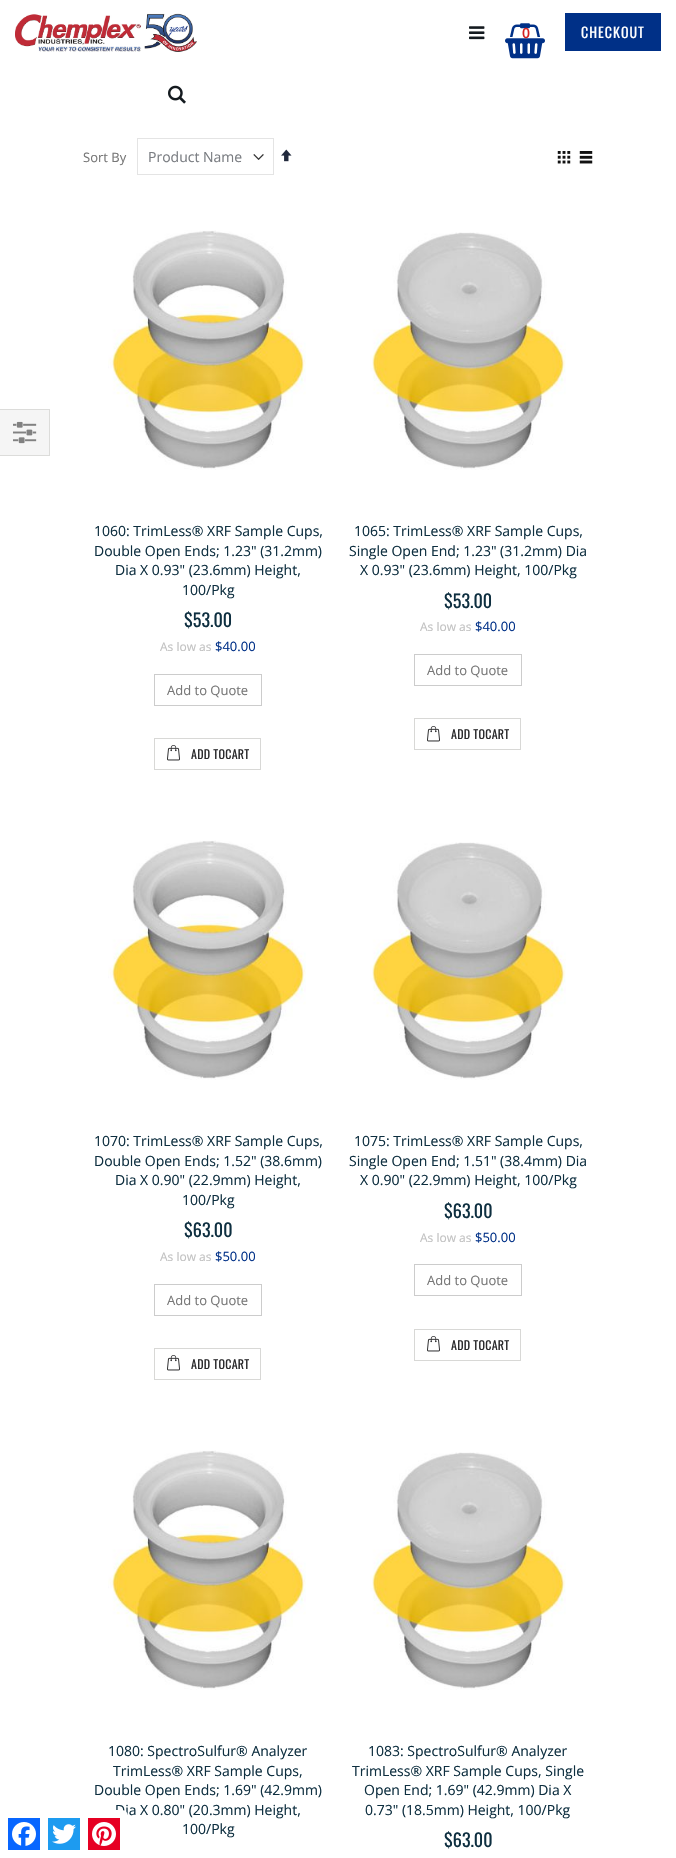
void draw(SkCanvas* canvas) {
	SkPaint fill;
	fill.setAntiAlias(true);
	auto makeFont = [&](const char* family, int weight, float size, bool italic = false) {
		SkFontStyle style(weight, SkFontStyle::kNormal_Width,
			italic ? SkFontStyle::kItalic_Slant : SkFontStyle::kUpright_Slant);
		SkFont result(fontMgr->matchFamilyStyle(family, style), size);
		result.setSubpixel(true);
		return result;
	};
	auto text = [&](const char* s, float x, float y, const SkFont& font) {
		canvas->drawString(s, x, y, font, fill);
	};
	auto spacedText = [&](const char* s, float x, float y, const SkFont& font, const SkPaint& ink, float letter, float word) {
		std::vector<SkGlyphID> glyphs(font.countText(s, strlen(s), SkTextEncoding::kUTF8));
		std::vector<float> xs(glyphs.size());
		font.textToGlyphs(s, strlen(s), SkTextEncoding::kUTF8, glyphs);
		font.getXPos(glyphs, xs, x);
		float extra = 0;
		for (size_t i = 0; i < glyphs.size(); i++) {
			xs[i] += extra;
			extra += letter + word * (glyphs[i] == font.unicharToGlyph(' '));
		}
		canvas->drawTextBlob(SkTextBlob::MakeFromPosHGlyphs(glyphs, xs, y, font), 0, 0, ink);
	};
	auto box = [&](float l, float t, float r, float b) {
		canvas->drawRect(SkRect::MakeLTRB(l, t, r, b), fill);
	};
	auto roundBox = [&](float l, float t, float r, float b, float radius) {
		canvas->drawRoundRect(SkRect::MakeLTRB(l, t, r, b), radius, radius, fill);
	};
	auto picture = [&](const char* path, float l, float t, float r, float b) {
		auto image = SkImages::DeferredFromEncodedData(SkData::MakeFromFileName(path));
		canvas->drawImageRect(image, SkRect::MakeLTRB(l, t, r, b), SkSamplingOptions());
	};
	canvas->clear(0xFFFFFFFF);
	picture("image0.png", 15, 13, 197, 52);
	picture("image1.png", 469, 26, 485, 40);
	picture("image2.png", 505, 23, 545, 59);
	fill.setColor(0xFF003087);
	box(565, 13, 661, 51);
	picture("image3.png", 168, 85, 186, 104);
	fill.setColor(0xFFF5F5F5);
	canvas->drawRect(SkRect::MakeLTRB(-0.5f, 409.5f, 49.5f, 455.5f), fill);
	fill.setStyle(SkPaint::kStroke_Style);
	fill.setStrokeWidth(1);
	fill.setColor(0xFFDCDCDA);
	canvas->drawRect(SkRect::MakeLTRB(-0.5f, 409.5f, 49.5f, 455.5f), fill);
	picture("image4.png", 13, 421, 37, 444);
	picture("image8.png", 253, 154, 264, 160);
	fill.setColor(0xFFE4E4E4);
	canvas->drawRect(SkRect::MakeLTRB(137.5f, 138.5f, 273.5f, 174.5f), fill);
	picture("image9.png", 281, 149, 292, 162);
	picture("image10.png", 557, 151, 571, 164);
	picture("image11.png", 579, 151, 593, 164);
	picture("image12.png", 108, 230, 306, 470);
	fill.setColor(0xFFCCCCCC);
	canvas->drawRect(SkRect::MakeLTRB(154.5f, 674.5f, 261.5f, 705.5f), fill);
	fill.setColor(0xFFD8D8D6);
	canvas->drawRect(SkRect::MakeLTRB(154.5f, 738.5f, 260.5f, 769.5f), fill);
	picture("image13.png", 167, 745, 180, 761);
	picture("image14.png", 370, 232, 566, 470);
	fill.setColor(0xFFCCCCCC);
	canvas->drawRect(SkRect::MakeLTRB(414.5f, 654.5f, 521.5f, 685.5f), fill);
	fill.setColor(0xFFD8D8D6);
	canvas->drawRect(SkRect::MakeLTRB(414.5f, 718.5f, 520.5f, 749.5f), fill);
	picture("image13.png", 427, 726, 440, 742);
	picture("image12.png", 108, 840, 306, 1080);
	fill.setColor(0xFFCCCCCC);
	canvas->drawRect(SkRect::MakeLTRB(154.5f, 1284.5f, 261.5f, 1315.5f), fill);
	fill.setColor(0xFFD8D8D6);
	canvas->drawRect(SkRect::MakeLTRB(154.5f, 1348.5f, 260.5f, 1379.5f), fill);
	picture("image13.png", 167, 1355, 180, 1371);
	picture("image14.png", 370, 842, 566, 1080);
	fill.setColor(0xFFCCCCCC);
	canvas->drawRect(SkRect::MakeLTRB(414.5f, 1264.5f, 521.5f, 1295.5f), fill);
	fill.setColor(0xFFD8D8D6);
	canvas->drawRect(SkRect::MakeLTRB(414.5f, 1329.5f, 520.5f, 1360.5f), fill);
	picture("image13.png", 427, 1336, 440, 1352);
	picture("image12.png", 108, 1450, 306, 1690);
	picture("image14.png", 370, 1452, 566, 1690);
	auto font1 = makeFont("Open Sans", 600, 14);
	fill.setStyle(SkPaint::kFill_Style);
	fill.setColor(0xFFD52020);
	text("0", 522, 38, font1);
	auto font2 = makeFont("Oswald", 400, 14);
	fill.setColor(0xFFFFFFFF);
	spacedText("CHECKOUT", 581, 38, font2, fill, 1, 0);
	auto font3 = makeFont("Open Sans", 400, 13);
	fill.setColor(0xFF777777);
	text("Sort By", 83, 162, font3);
	auto font4 = makeFont("Open Sans", 400, 14);
	fill.setColor(0xFF7A7D82);
	text("Product Name", 148, 162, font4);
	fill.setColor(0xFF0E2F40);
	text("1060: TrimLess® XRF Sample Cups,", 94, 536, font4);
	text("Double Open Ends; 1.23\" (31.2mm)", 94, 556, font4);
	text("Dia X 0.93\" (23.6mm) Height,", 115, 575, font4);
	text("100/Pkg", 182, 595, font4);
	auto font5 = makeFont("Oswald", 400, 18);
	text("$53.00", 184, 627, font5);
	auto font6 = makeFont("Open Sans", 400, 12);
	fill.setColor(0xFFC1C1C1);
	text("As low as", 160, 651, font6);
	fill.setColor(0xFF003087);
	text("$40.00", 215, 651, font3);
	fill.setColor(0xFF777777);
	text("Add to Quote", 167, 695, font3);
	auto font7 = makeFont("Oswald", 400, 12);
	fill.setColor(0xFF2B2B2D);
	spacedText("ADD TOCART", 191, 759, font7, fill, 0.25f, 0);
	fill.setColor(0xFF0E2F40);
	text("1065: TrimLess® XRF Sample Cups,", 354, 536, font4);
	text("Single Open End; 1.23\" (31.2mm) Dia", 349, 556, font4);
	text("X 0.93\" (23.6mm) Height, 100/Pkg", 360, 575, font4);
	text("$53.00", 444, 608, font5);
	fill.setColor(0xFFC1C1C1);
	text("As low as", 420, 631, font6);
	fill.setColor(0xFF003087);
	text("$40.00", 475, 631, font3);
	fill.setColor(0xFF777777);
	text("Add to Quote", 427, 675, font3);
	fill.setColor(0xFF2B2B2D);
	spacedText("ADD TOCART", 451, 739, font7, fill, 0.25f, 0);
	fill.setColor(0xFF0E2F40);
	text("1070: TrimLess® XRF Sample Cups,", 94, 1146, font4);
	text("Double Open Ends; 1.52\" (38.6mm)", 94, 1166, font4);
	text("Dia X 0.90\" (22.9mm) Height,", 115, 1185, font4);
	text("100/Pkg", 182, 1205, font4);
	text("$63.00", 184, 1237, font5);
	fill.setColor(0xFFC1C1C1);
	text("As low as", 160, 1261, font6);
	fill.setColor(0xFF003087);
	text("$50.00", 215, 1261, font3);
	fill.setColor(0xFF777777);
	text("Add to Quote", 167, 1305, font3);
	fill.setColor(0xFF2B2B2D);
	spacedText("ADD TOCART", 191, 1369, font7, fill, 0.25f, 0);
	fill.setColor(0xFF0E2F40);
	text("1075: TrimLess® XRF Sample Cups,", 354, 1146, font4);
	text("Single Open End; 1.51\" (38.4mm) Dia", 349, 1166, font4);
	text("X 0.90\" (22.9mm) Height, 100/Pkg", 360, 1185, font4);
	text("$63.00", 444, 1218, font5);
	fill.setColor(0xFFC1C1C1);
	text("As low as", 420, 1242, font6);
	fill.setColor(0xFF003087);
	text("$50.00", 475, 1242, font3);
	fill.setColor(0xFF777777);
	text("Add to Quote", 427, 1285, font3);
	fill.setColor(0xFF2B2B2D);
	spacedText("ADD TOCART", 451, 1350, font7, fill, 0.25f, 0);
	fill.setColor(0xFF0E2F40);
	text("1080: SpectroSulfur® Analyzer", 108, 1756, font4);
	text("TrimLess® XRF Sample Cups,", 113, 1776, font4);
	text("Double Open Ends; 1.69\" (42.9mm)", 94, 1795, font4);
	text("Dia X 0.80\" (20.3mm) Height,", 115, 1815, font4);
	fill.setColor(0xFFFFFFFF);
	roundBox(0, 1810, 128, 1858, 6);
	fill.setColor(0xFFE60023);
	box(88, 1818, 120, 1850);
	picture("image7.png", 92, 1822, 116, 1846);
	fill.setColor(0xFF1D9BF0);
	box(48, 1818, 80, 1850);
	picture("image6.png", 52, 1824, 76, 1844);
	fill.setColor(0xFF0866FF);
	box(8, 1818, 40, 1850);
	picture("image5.png", 12, 1822, 36, 1846);
	fill.setColor(0xFF0E2F40);
	text("100/Pkg", 182, 1834, font4);
	text("1083: SpectroSulfur® Analyzer", 368, 1756, font4);
	text("TrimLess® XRF Sample Cups, Single", 352, 1776, font4);
	text("Open End; 1.69\" (42.9mm) Dia X", 364, 1795, font4);
	text("0.73\" (18.5mm) Height, 100/Pkg", 365, 1815, font4);
	text("$63.00", 444, 1847, font5);
}
